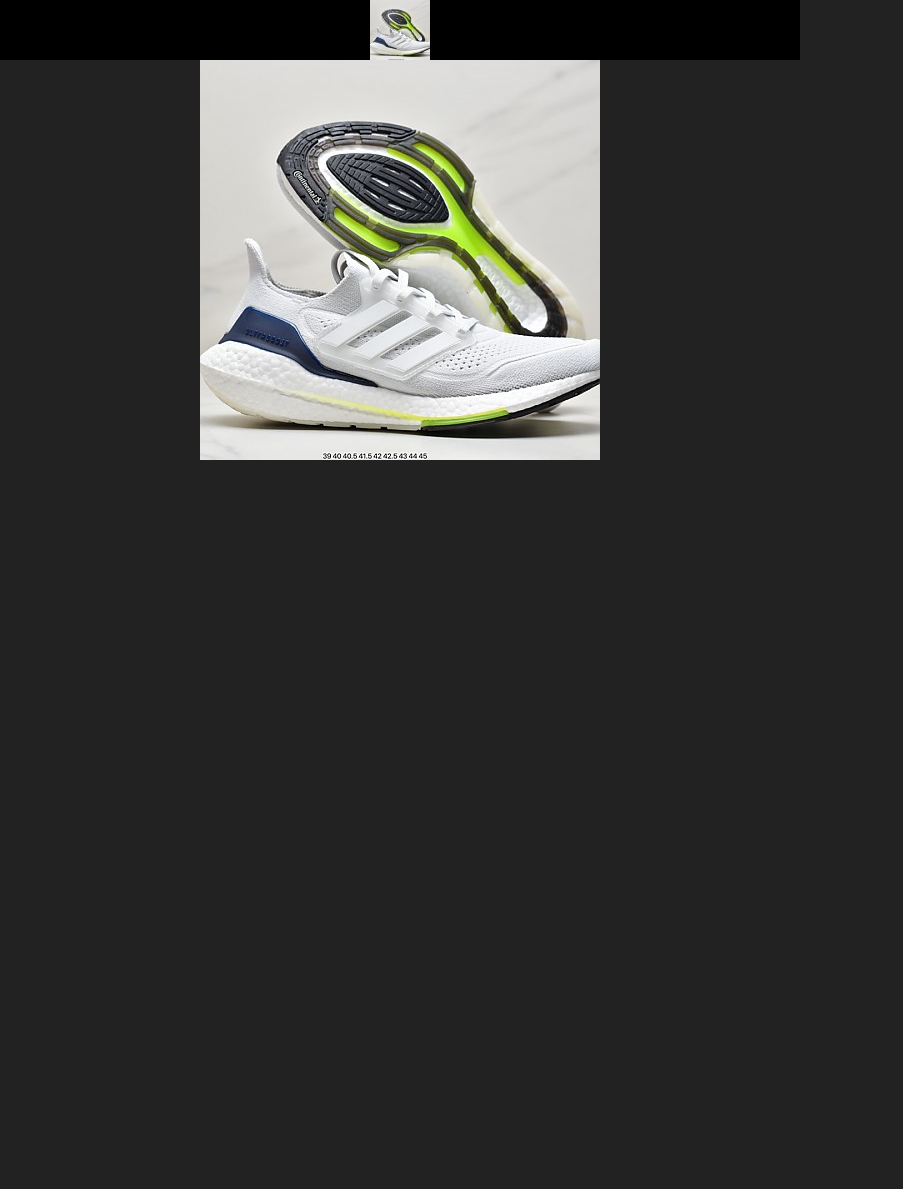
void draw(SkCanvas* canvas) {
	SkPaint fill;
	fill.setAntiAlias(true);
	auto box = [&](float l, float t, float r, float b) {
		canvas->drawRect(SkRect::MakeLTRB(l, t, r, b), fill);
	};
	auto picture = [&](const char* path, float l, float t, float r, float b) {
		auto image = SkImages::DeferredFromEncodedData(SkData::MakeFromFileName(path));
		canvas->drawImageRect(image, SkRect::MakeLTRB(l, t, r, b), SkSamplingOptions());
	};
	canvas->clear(0xFF222222);
	fill.setColor(0xFF000000);
	box(0, 0, 800, 60);
	picture("image0.png", 370, 0, 430, 60);
	picture("image1.png", 200, 60, 600, 460);
}
